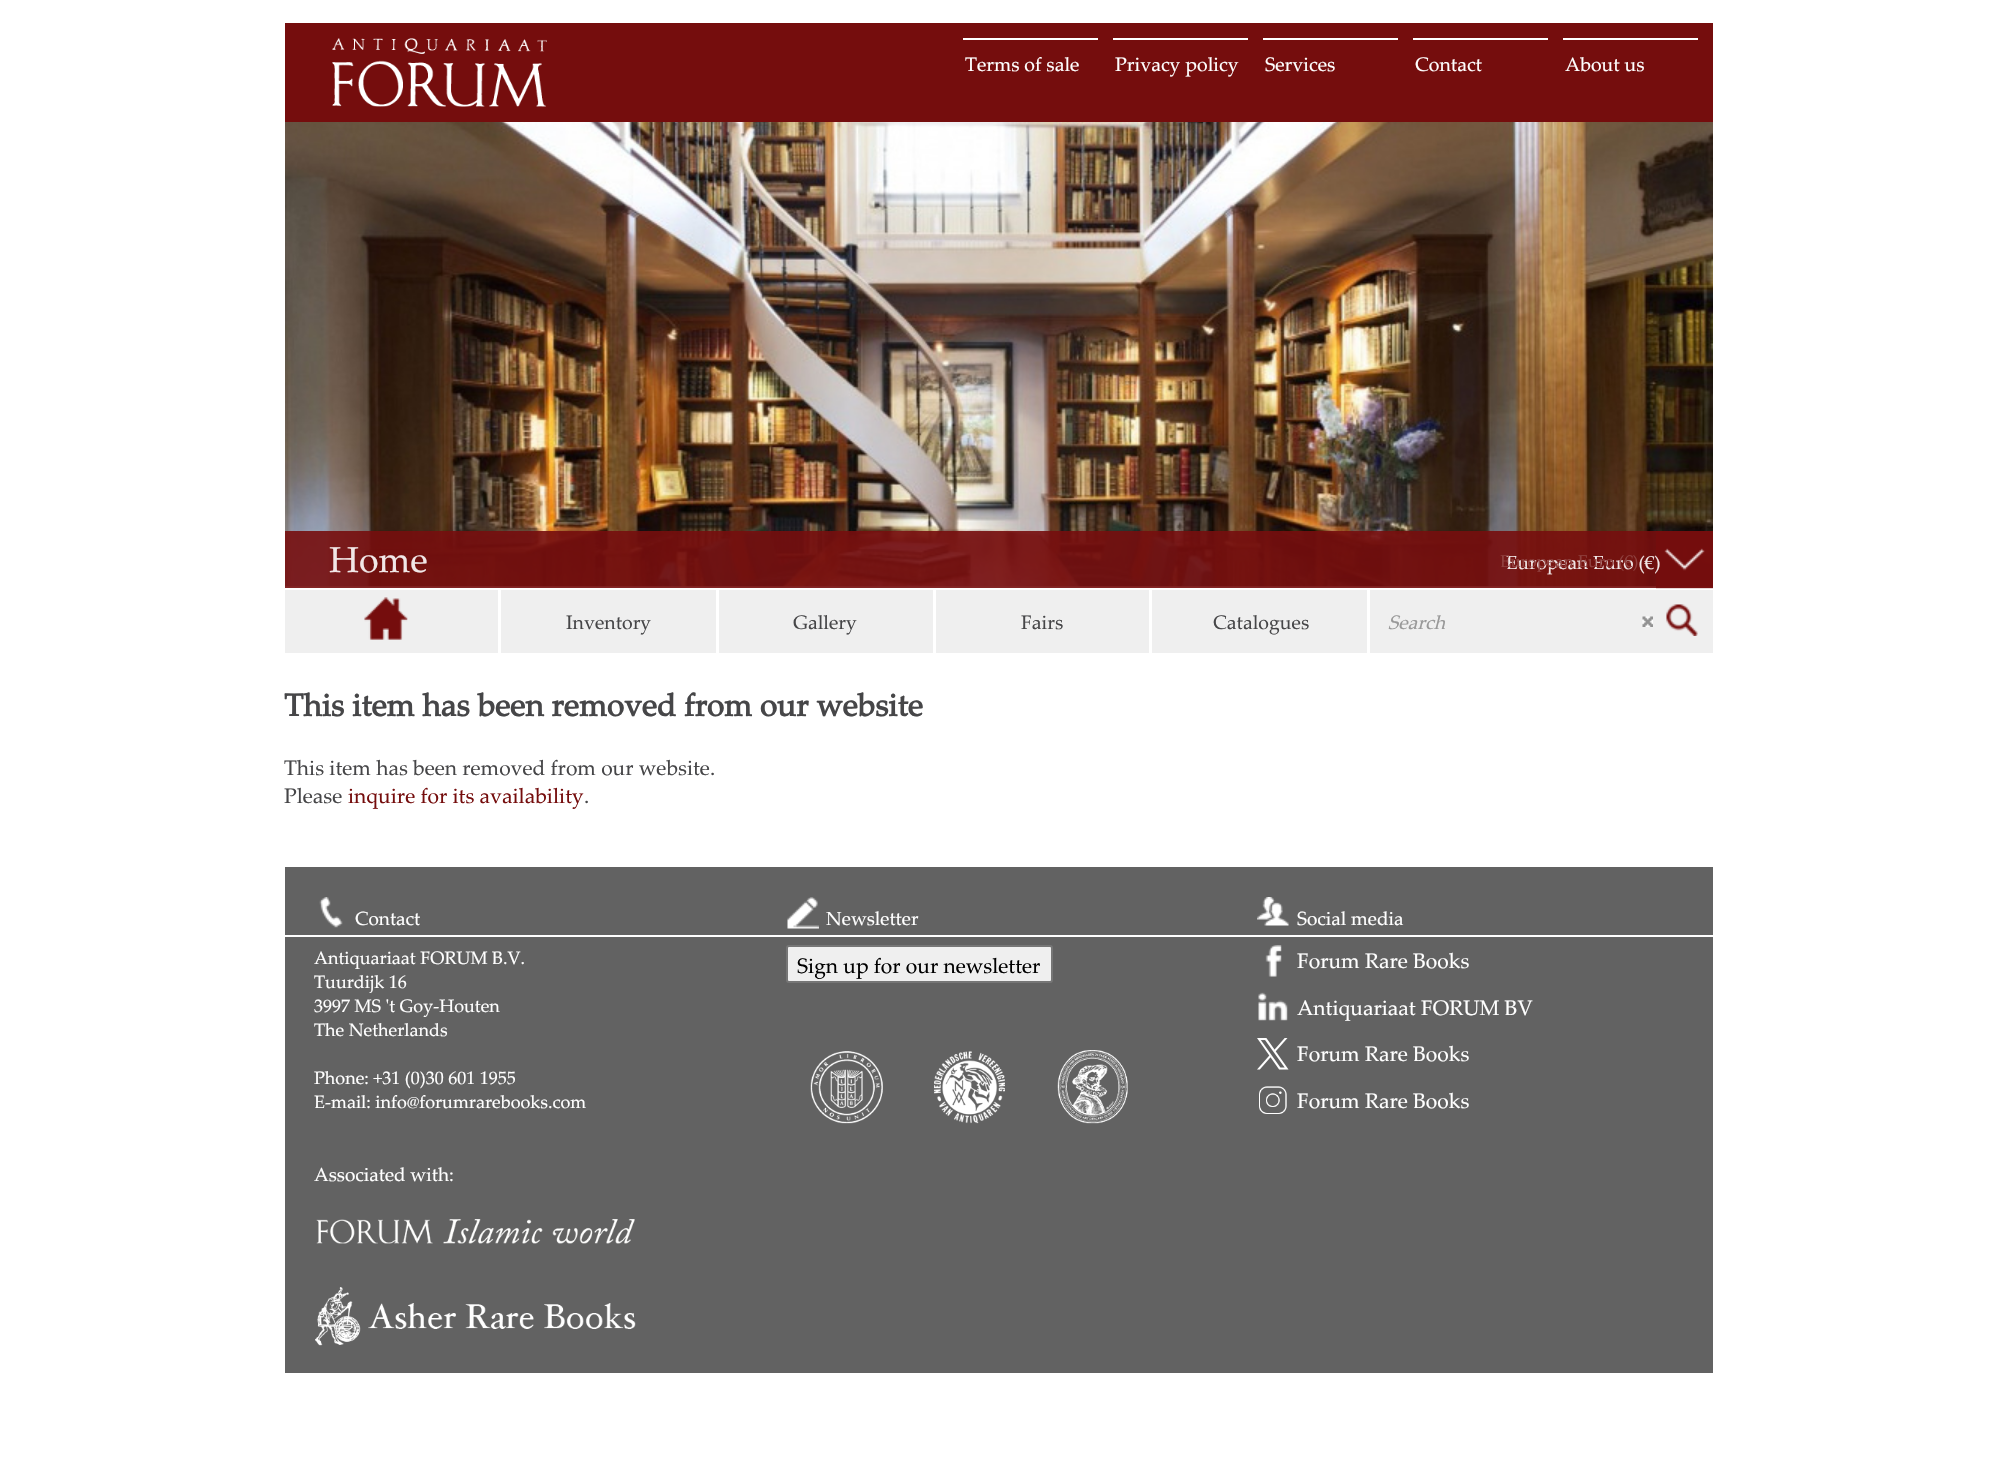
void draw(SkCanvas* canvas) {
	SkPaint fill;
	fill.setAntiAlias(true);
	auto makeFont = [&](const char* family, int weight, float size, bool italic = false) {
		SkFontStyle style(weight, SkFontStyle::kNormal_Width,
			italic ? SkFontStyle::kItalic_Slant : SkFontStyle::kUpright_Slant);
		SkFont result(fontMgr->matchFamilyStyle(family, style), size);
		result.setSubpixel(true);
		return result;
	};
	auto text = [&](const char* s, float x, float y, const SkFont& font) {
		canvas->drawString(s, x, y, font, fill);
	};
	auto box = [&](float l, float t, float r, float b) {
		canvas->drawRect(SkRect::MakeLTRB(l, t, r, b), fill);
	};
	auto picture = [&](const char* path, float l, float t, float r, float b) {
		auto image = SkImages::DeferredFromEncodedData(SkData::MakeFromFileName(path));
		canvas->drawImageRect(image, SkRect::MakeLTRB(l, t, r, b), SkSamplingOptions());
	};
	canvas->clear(0xFFFFFFFF);
	fill.setColor(0xFF750D0D);
	box(285, 23, 1713, 122);
	picture("image0.png", 332, 38, 547, 107);
	fill.setColor(0xFFFFFFFF);
	box(963, 38, 1098, 40);
	box(1113, 38, 1248, 40);
	box(1263, 38, 1398, 40);
	box(1413, 38, 1548, 40);
	box(1563, 38, 1698, 40);
	picture("image1.png", 285, 122, 1713, 587);
	fill.setColor(0xE6750D0D);
	box(285, 531, 1713, 588);
	picture("image2.png", 1656, 531, 1713, 589);
	fill.setColor(0xFFEFEFEF);
	box(285, 590, 1713, 653);
	fill.setColor(0xFFFFFFFF);
	box(498, 590, 501, 653);
	picture("image3.png", 364, 597, 408, 640);
	box(716, 590, 719, 653);
	box(933, 590, 936, 653);
	box(1149, 590, 1152, 653);
	box(1367, 590, 1370, 654);
	picture("image4.png", 1666, 604, 1698, 636);
	picture("image5.png", 1642, 616, 1653, 627);
	fill.setColor(0xFF626262);
	box(285, 867, 1713, 1373);
	picture("image6.png", 319, 897, 343, 928);
	picture("image7.png", 316, 1219, 635, 1244);
	picture("image8.png", 315, 1287, 636, 1346);
	picture("image9.png", 787, 897, 819, 929);
	fill.setColor(0xFFEFEFEF);
	canvas->drawRoundRect(SkRect::MakeLTRB(787, 946, 1052, 982), 2, 2, fill);
	fill.setStyle(SkPaint::kStroke_Style);
	fill.setStrokeWidth(2);
	fill.setColor(0xFF767676);
	canvas->drawRoundRect(SkRect::MakeLTRB(787, 946, 1052, 982), 2, 2, fill);
	picture("image10.png", 810, 1051, 883, 1124);
	picture("image11.png", 934, 1051, 1005, 1124);
	picture("image12.png", 1057, 1050, 1128, 1124);
	picture("image13.png", 1257, 897, 1289, 926);
	picture("image14.png", 1265, 945, 1282, 977);
	picture("image15.png", 1258, 992, 1288, 1021);
	picture("image16.png", 1257, 1038, 1289, 1070);
	picture("image17.png", 1259, 1086, 1287, 1114);
	fill.setStyle(SkPaint::kFill_Style);
	fill.setColor(0xFFFFFFFF);
	box(285, 935, 1713, 937);
	auto font1 = makeFont("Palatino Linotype", 400, 19.5f);
	text("Terms of sale", 965, 71, font1);
	text("Privacy policy", 1115, 71, font1);
	text("Services", 1265, 71, font1);
	text("Contact", 1415, 71, font1);
	text("About us", 1565, 71, font1);
	auto font2 = makeFont("Palatino Linotype", 400, 36);
	fill.setColor(0xFFF1E7E7);
	text("Home", 329, 572, font2);
	auto font3 = makeFont("Palatino Linotype", 400, 19);
	text("European Euro (€)", 1506, 569, font3);
	auto font4 = makeFont("Palatino Linotype", 400, 17);
	fill.setColor(0xFF8F403E);
	text("European Euro (€)", 1500, 567, font4);
	fill.setColor(0xFF464648);
	text("Inventory", 566, 629, font1);
	text("Gallery", 793, 629, font1);
	text("Fairs", 1021, 629, font1);
	text("Catalogues", 1213, 629, font1);
	auto font5 = makeFont("Palatino Linotype", 400, 19.5f, true);
	fill.setColor(0xFF999999);
	text("Search", 1388, 629, font5);
	auto font6 = makeFont("Palatino Linotype", 700, 31.5f);
	fill.setColor(0xFF464648);
	text("This item has been removed from our website", 284, 716, font6);
	auto font7 = makeFont("Palatino Linotype", 400, 21);
	text("This item has been removed from our website.", 284, 775, font7);
	text("Please", 284, 803, font7);
	fill.setColor(0xFF750D0D);
	text("inquire for its availability", 348, 803, font7);
	fill.setColor(0xFF464648);
	text(".", 584, 803, font7);
	fill.setColor(0xFFFFFFFF);
	text("Contact", 355, 925, font3);
	auto font8 = makeFont("Palatino Linotype", 400, 18);
	text("Antiquariaat FORUM B.V.", 314, 964, font8);
	text("Tuurdijk 16", 314, 988, font8);
	text("3997 MS 't Goy-Houten", 314, 1012, font8);
	text("The Netherlands", 314, 1036, font8);
	text("Phone: +31 (0)30 601 1955", 314, 1084, font8);
	text("E-mail: info@forumrarebooks.com", 314, 1108, font8);
	text("Associated with:", 314, 1181, font3);
	text("Newsletter", 826, 925, font3);
	fill.setColor(0xFF000000);
	text("Sign up for our newsletter", 797, 973, font7);
	fill.setColor(0xFFFFFFFF);
	text("Social media", 1297, 925, font3);
	text("Forum Rare Books", 1297, 968, font7);
	text("Antiquariaat FORUM BV", 1297, 1015, font7);
	text("Forum Rare Books", 1297, 1061, font7);
	text("Forum Rare Books", 1297, 1108, font7);
}
